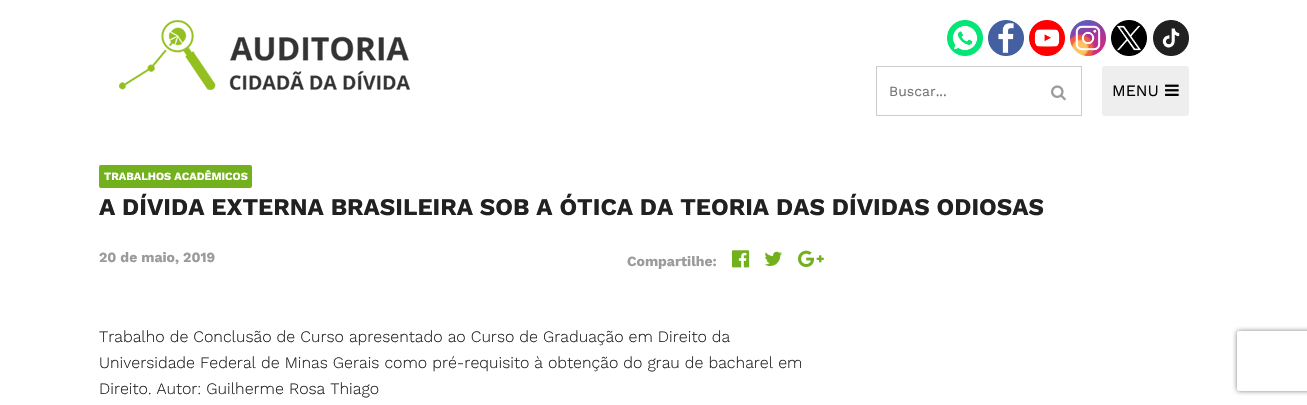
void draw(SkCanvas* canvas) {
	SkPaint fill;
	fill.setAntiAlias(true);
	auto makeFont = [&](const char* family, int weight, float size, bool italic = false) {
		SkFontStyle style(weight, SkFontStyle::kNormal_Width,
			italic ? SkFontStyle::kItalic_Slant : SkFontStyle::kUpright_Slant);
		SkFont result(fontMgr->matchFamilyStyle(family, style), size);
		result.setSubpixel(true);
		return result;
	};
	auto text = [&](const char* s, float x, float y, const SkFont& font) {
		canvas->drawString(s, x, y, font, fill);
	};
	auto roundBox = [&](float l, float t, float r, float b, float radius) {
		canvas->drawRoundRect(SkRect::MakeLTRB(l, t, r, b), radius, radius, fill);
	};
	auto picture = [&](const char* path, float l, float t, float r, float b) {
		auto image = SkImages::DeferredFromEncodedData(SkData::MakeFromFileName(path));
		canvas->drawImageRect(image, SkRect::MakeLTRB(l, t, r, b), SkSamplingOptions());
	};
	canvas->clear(0xFFFFFFFF);
	picture("image0.png", 119, 20, 410, 90);
	picture("image1.png", 947, 20, 983, 56);
	picture("image2.png", 988, 20, 1024, 56);
	picture("image3.png", 1029, 20, 1065, 56);
	picture("image4.png", 1070, 20, 1106, 56);
	picture("image5.png", 1111, 20, 1147, 56);
	picture("image6.png", 1153, 20, 1189, 56);
	fill.setStyle(SkPaint::kStroke_Style);
	fill.setStrokeWidth(1);
	fill.setColor(0xFFCCCCCC);
	canvas->drawRect(SkRect::MakeLTRB(876.5f, 66.5f, 1081.5f, 115.5f), fill);
	picture("image7.png", 1051, 85, 1066, 101);
	fill.setStyle(SkPaint::kFill_Style);
	fill.setColor(0xFFEEEEEE);
	roundBox(1102, 66, 1189, 116, 3);
	picture("image8.png", 1165, 84, 1179, 96);
	fill.setColor(0xFF72B01D);
	roundBox(99, 165, 252, 188, 2);
	picture("image9.png", 732, 250, 750, 268);
	picture("image10.png", 764, 251, 782, 266);
	picture("image11.png", 798, 250, 824, 267);
	canvas->save();
	canvas->clipPath(SkPathBuilder(SkPathFillType::kEvenOdd).moveTo(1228, 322).lineTo(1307, 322).lineTo(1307, 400).lineTo(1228, 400).close().moveTo(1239, 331).lineTo(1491, 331).cubicTo(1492, 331, 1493, 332, 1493, 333).lineTo(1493, 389).cubicTo(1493, 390, 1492, 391, 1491, 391).lineTo(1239, 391).cubicTo(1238, 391, 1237, 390, 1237, 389).lineTo(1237, 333).cubicTo(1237, 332, 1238, 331, 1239, 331).close().detach(), true);
	fill.setColor(0xFF808080);
	fill.setMaskFilter(SkMaskFilter::MakeBlur(kNormal_SkBlurStyle, 2.5f));
	canvas->drawRoundRect(SkRect::MakeLTRB(1237, 331, 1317, 391), 2, 2, fill);
	fill.setMaskFilter(nullptr);
	canvas->restore();
	auto font1 = makeFont("Work Sans", 400, 14);
	fill.setColor(0xFF757575);
	text("Buscar...", 889, 96, font1);
	auto font2 = makeFont("Work Sans", 400, 16);
	fill.setColor(0xFF000000);
	text("MENU", 1112, 96, font2);
	auto font3 = makeFont("Work Sans", 700, 11);
	fill.setColor(0xFFFFFFFF);
	text("TRABALHOS ACADÊMICOS", 104, 180, font3);
	auto font4 = makeFont("Work Sans", 700, 24);
	fill.setColor(0xFF212121);
	text("A DÍVIDA EXTERNA BRASILEIRA SOB A ÓTICA DA TEORIA DAS DÍVIDAS ODIOSAS", 99, 215, font4);
	auto font5 = makeFont("Work Sans", 700, 14);
	fill.setColor(0xFF9B9B9B);
	text("20 de maio, 2019", 99, 262, font5);
	text("Compartilhe:", 627, 266, font5);
	auto font6 = makeFont("Work Sans", 300, 16);
	fill.setColor(0xFF212121);
	text("Trabalho de Conclusão de Curso apresentado ao Curso de Graduação em Direito da", 99, 342, font6);
	text("Universidade Federal de Minas Gerais como pré-requisito à obtenção do grau de bacharel em", 99, 368, font6);
	text("Direito. Autor: Guilherme Rosa Thiago", 99, 394, font6);
}
